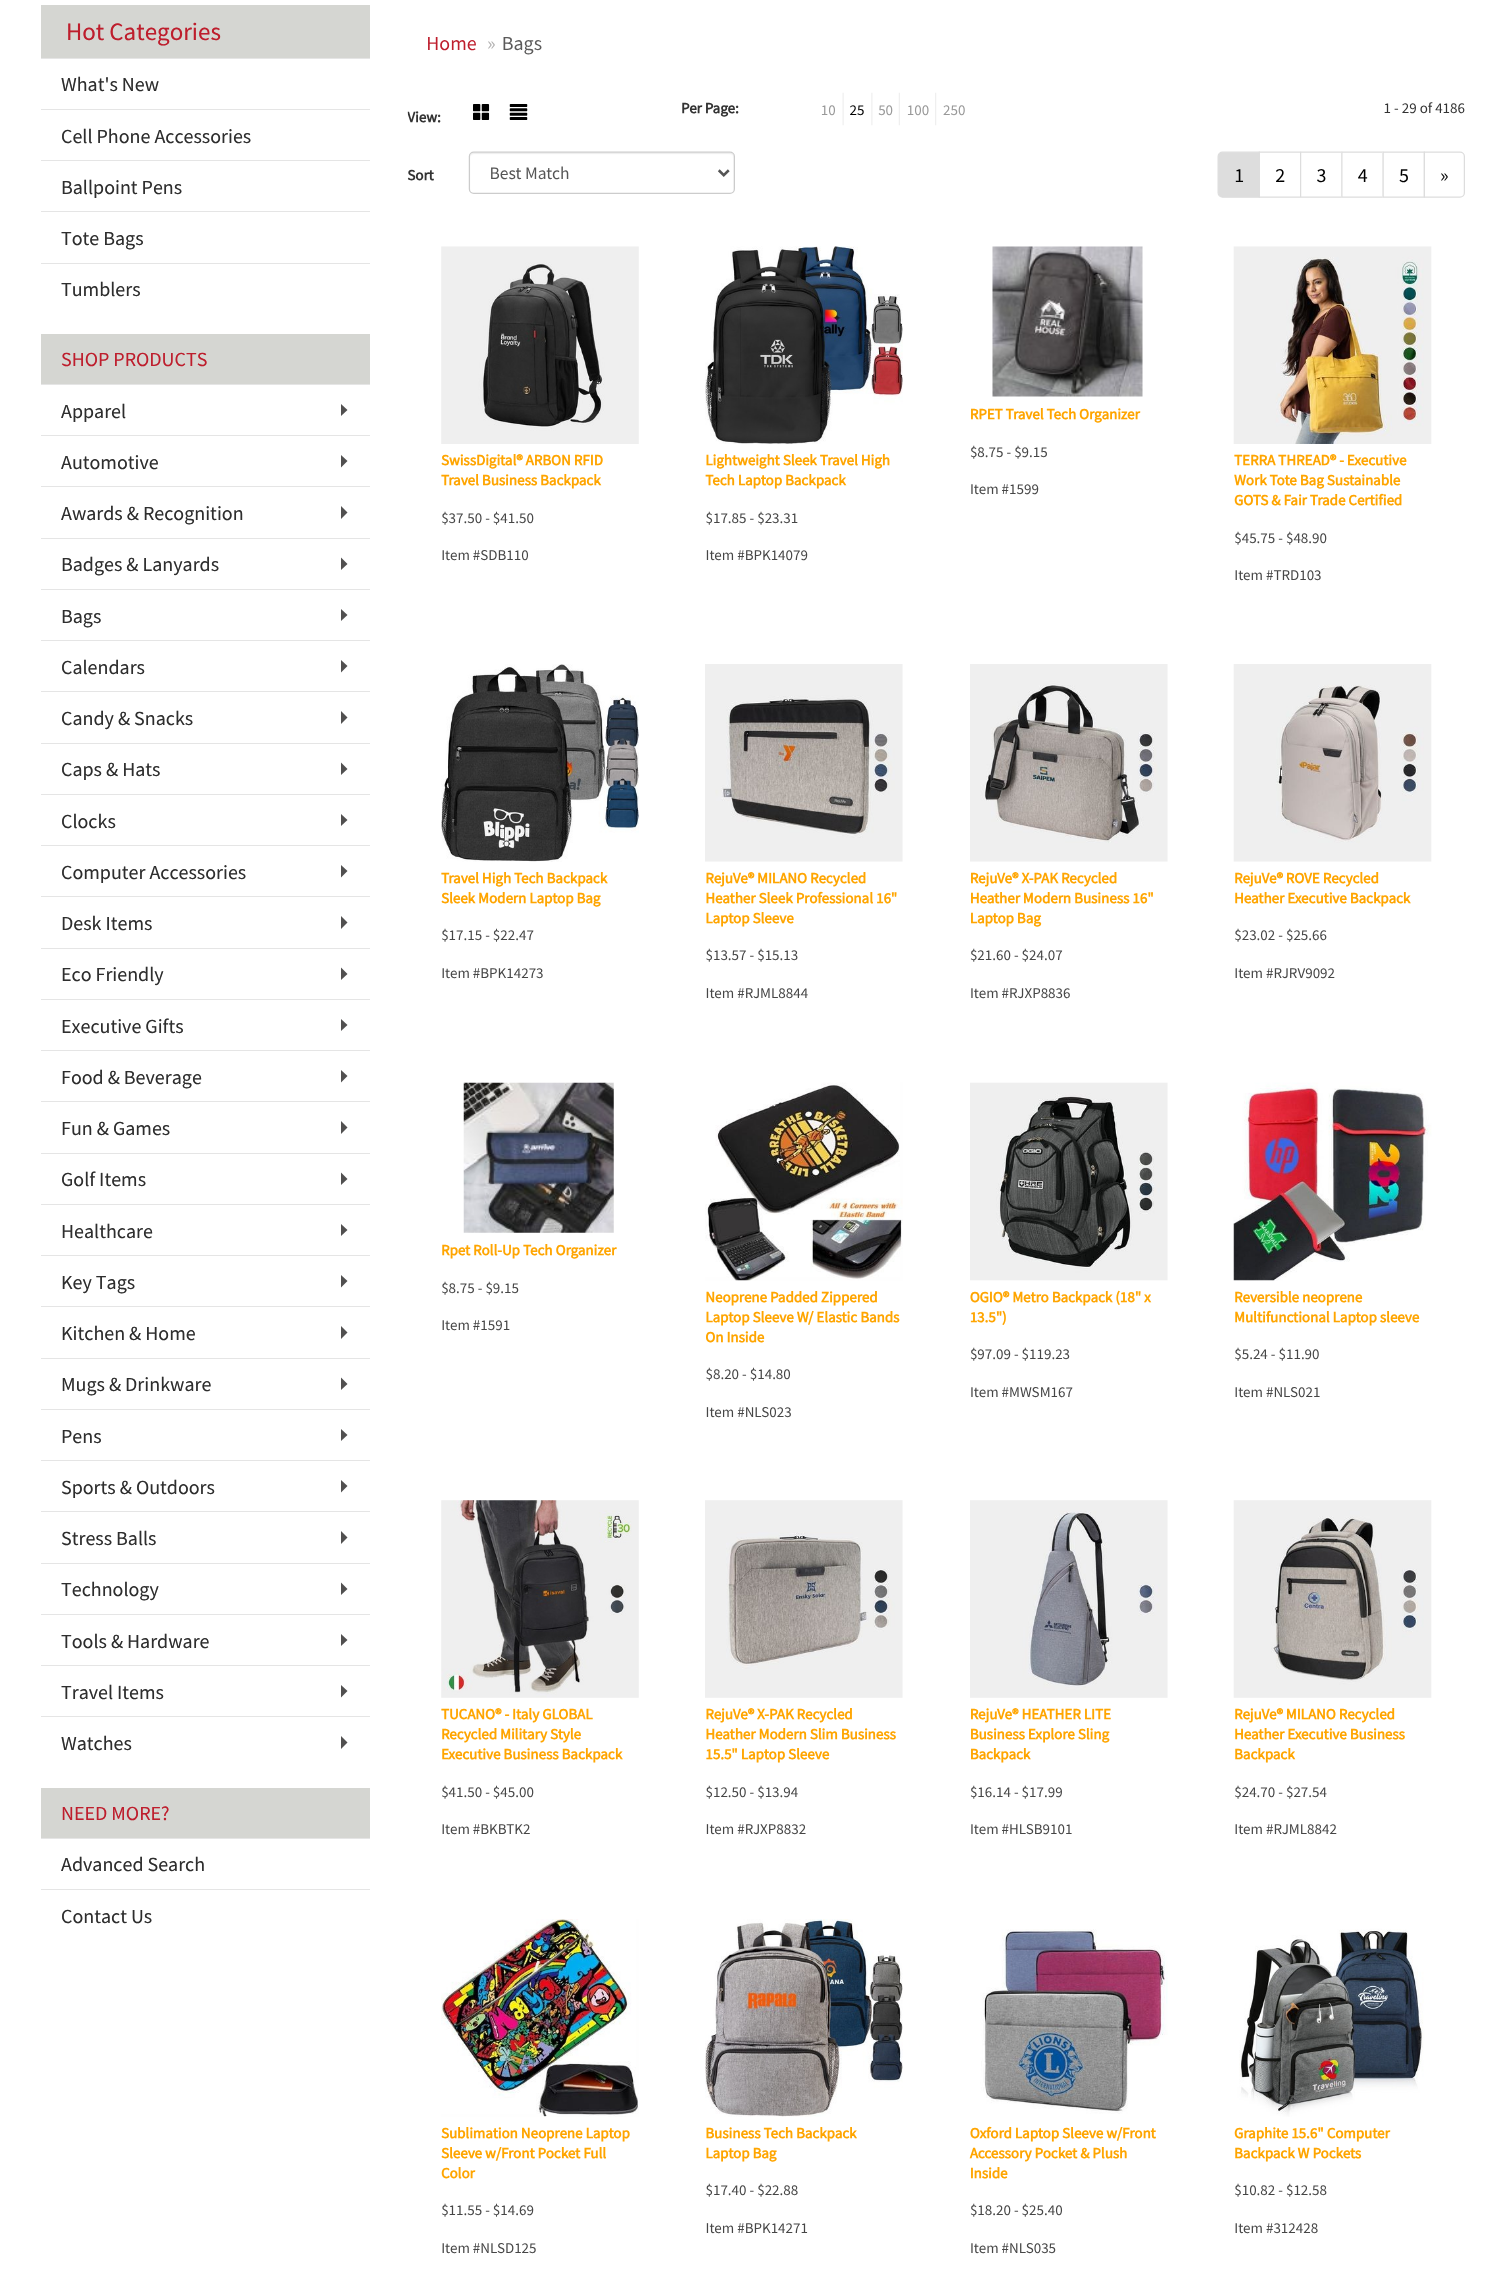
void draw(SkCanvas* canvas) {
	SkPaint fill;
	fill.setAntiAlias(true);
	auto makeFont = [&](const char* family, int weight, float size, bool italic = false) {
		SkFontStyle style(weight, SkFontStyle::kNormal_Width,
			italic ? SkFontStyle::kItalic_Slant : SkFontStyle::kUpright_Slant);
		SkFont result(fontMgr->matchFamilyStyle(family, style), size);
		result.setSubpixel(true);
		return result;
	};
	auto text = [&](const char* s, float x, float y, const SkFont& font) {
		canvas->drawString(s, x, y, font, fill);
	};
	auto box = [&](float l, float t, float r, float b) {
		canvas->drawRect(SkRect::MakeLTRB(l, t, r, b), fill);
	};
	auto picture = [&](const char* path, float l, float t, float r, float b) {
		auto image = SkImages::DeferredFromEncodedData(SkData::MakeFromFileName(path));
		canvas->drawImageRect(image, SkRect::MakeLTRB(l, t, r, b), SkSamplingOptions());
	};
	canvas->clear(0xFFFFFFFF);
	fill.setColor(0xFFD5D6D2);
	box(41, 5, 370, 58);
	fill.setColor(0xFFE5E5E5);
	box(41, 58, 370, 59);
	box(41, 109, 370, 110);
	box(41, 160, 370, 161);
	box(41, 211, 370, 212);
	box(41, 263, 370, 264);
	fill.setColor(0xFFD5D6D2);
	box(41, 334, 370, 384);
	fill.setColor(0xFFE5E5E5);
	box(41, 384, 370, 385);
	fill.setColor(0xFF515050);
	canvas->drawPath(SkPathBuilder().moveTo(341, 416).lineTo(341, 404).lineTo(347.5f, 410).close().detach(), fill);
	fill.setColor(0xFFE5E5E5);
	box(41, 435, 370, 436);
	fill.setColor(0xFF515050);
	canvas->drawPath(SkPathBuilder().moveTo(341, 467.5f).lineTo(341, 455).lineTo(347.5f, 461).close().detach(), fill);
	fill.setColor(0xFFE5E5E5);
	box(41, 486, 370, 487);
	fill.setColor(0xFF515050);
	canvas->drawPath(SkPathBuilder().moveTo(341, 519).lineTo(341, 506).lineTo(347.5f, 512.5f).close().detach(), fill);
	fill.setColor(0xFFE5E5E5);
	box(41, 538, 370, 539);
	fill.setColor(0xFF515050);
	canvas->drawPath(SkPathBuilder().moveTo(341, 570).lineTo(341, 557.5f).lineTo(347.5f, 564).close().detach(), fill);
	fill.setColor(0xFFE5E5E5);
	box(41, 589, 370, 590);
	fill.setColor(0xFF515050);
	canvas->drawPath(SkPathBuilder().moveTo(341, 621).lineTo(341, 609).lineTo(347.5f, 615).close().detach(), fill);
	fill.setColor(0xFFE5E5E5);
	box(41, 640, 370, 641);
	fill.setColor(0xFF515050);
	canvas->drawPath(SkPathBuilder().moveTo(341, 672.5f).lineTo(341, 660).lineTo(347.5f, 666).close().detach(), fill);
	fill.setColor(0xFFE5E5E5);
	box(41, 691, 370, 692);
	fill.setColor(0xFF515050);
	canvas->drawPath(SkPathBuilder().moveTo(341, 724).lineTo(341, 711).lineTo(347.5f, 717.5f).close().detach(), fill);
	fill.setColor(0xFFE5E5E5);
	box(41, 743, 370, 744);
	fill.setColor(0xFF515050);
	canvas->drawPath(SkPathBuilder().moveTo(341, 775).lineTo(341, 762.5f).lineTo(347.5f, 769).close().detach(), fill);
	fill.setColor(0xFFE5E5E5);
	box(41, 794, 370, 795);
	fill.setColor(0xFF515050);
	canvas->drawPath(SkPathBuilder().moveTo(341, 826).lineTo(341, 814).lineTo(347.5f, 820).close().detach(), fill);
	fill.setColor(0xFFE5E5E5);
	box(41, 845, 370, 846);
	fill.setColor(0xFF515050);
	canvas->drawPath(SkPathBuilder().moveTo(341, 877.5f).lineTo(341, 865).lineTo(347.5f, 871).close().detach(), fill);
	fill.setColor(0xFFE5E5E5);
	box(41, 896, 370, 897);
	fill.setColor(0xFF515050);
	canvas->drawPath(SkPathBuilder().moveTo(341, 929).lineTo(341, 916).lineTo(347.5f, 922.5f).close().detach(), fill);
	fill.setColor(0xFFE5E5E5);
	box(41, 948, 370, 949);
	fill.setColor(0xFF515050);
	canvas->drawPath(SkPathBuilder().moveTo(341, 980).lineTo(341, 967.5f).lineTo(347.5f, 974).close().detach(), fill);
	fill.setColor(0xFFE5E5E5);
	box(41, 999, 370, 1000);
	fill.setColor(0xFF515050);
	canvas->drawPath(SkPathBuilder().moveTo(341, 1031).lineTo(341, 1019).lineTo(347.5f, 1025).close().detach(), fill);
	fill.setColor(0xFFE5E5E5);
	box(41, 1050, 370, 1051);
	fill.setColor(0xFF515050);
	canvas->drawPath(SkPathBuilder().moveTo(341, 1082.5f).lineTo(341, 1070).lineTo(347.5f, 1076).close().detach(), fill);
	fill.setColor(0xFFE5E5E5);
	box(41, 1101, 370, 1102);
	fill.setColor(0xFF515050);
	canvas->drawPath(SkPathBuilder().moveTo(341, 1134).lineTo(341, 1121).lineTo(347.5f, 1127.5f).close().detach(), fill);
	fill.setColor(0xFFE5E5E5);
	box(41, 1153, 370, 1154);
	fill.setColor(0xFF515050);
	canvas->drawPath(SkPathBuilder().moveTo(341, 1185).lineTo(341, 1172.5f).lineTo(347.5f, 1179).close().detach(), fill);
	fill.setColor(0xFFE5E5E5);
	box(41, 1204, 370, 1205);
	fill.setColor(0xFF515050);
	canvas->drawPath(SkPathBuilder().moveTo(341, 1236).lineTo(341, 1224).lineTo(347.5f, 1230).close().detach(), fill);
	fill.setColor(0xFFE5E5E5);
	box(41, 1255, 370, 1256);
	fill.setColor(0xFF515050);
	canvas->drawPath(SkPathBuilder().moveTo(341, 1287.5f).lineTo(341, 1275).lineTo(347.5f, 1281).close().detach(), fill);
	fill.setColor(0xFFE5E5E5);
	box(41, 1306, 370, 1307);
	fill.setColor(0xFF515050);
	canvas->drawPath(SkPathBuilder().moveTo(341, 1339).lineTo(341, 1326).lineTo(347.5f, 1332.5f).close().detach(), fill);
	fill.setColor(0xFFE5E5E5);
	box(41, 1358, 370, 1359);
	fill.setColor(0xFF515050);
	canvas->drawPath(SkPathBuilder().moveTo(341, 1390).lineTo(341, 1377.5f).lineTo(347.5f, 1384).close().detach(), fill);
	fill.setColor(0xFFE5E5E5);
	box(41, 1409, 370, 1410);
	fill.setColor(0xFF515050);
	canvas->drawPath(SkPathBuilder().moveTo(341, 1441).lineTo(341, 1429).lineTo(347.5f, 1435).close().detach(), fill);
	fill.setColor(0xFFE5E5E5);
	box(41, 1460, 370, 1461);
	fill.setColor(0xFF515050);
	canvas->drawPath(SkPathBuilder().moveTo(341, 1492.5f).lineTo(341, 1480).lineTo(347.5f, 1486).close().detach(), fill);
	fill.setColor(0xFFE5E5E5);
	box(41, 1511, 370, 1512);
	fill.setColor(0xFF515050);
	canvas->drawPath(SkPathBuilder().moveTo(341, 1544).lineTo(341, 1531).lineTo(347.5f, 1537.5f).close().detach(), fill);
	fill.setColor(0xFFE5E5E5);
	box(41, 1563, 370, 1564);
	fill.setColor(0xFF515050);
	canvas->drawPath(SkPathBuilder().moveTo(341, 1595).lineTo(341, 1582.5f).lineTo(347.5f, 1589).close().detach(), fill);
	fill.setColor(0xFFE5E5E5);
	box(41, 1614, 370, 1615);
	fill.setColor(0xFF515050);
	canvas->drawPath(SkPathBuilder().moveTo(341, 1646).lineTo(341, 1634).lineTo(347.5f, 1640).close().detach(), fill);
	fill.setColor(0xFFE5E5E5);
	box(41, 1665, 370, 1666);
	fill.setColor(0xFF515050);
	canvas->drawPath(SkPathBuilder().moveTo(341, 1697.5f).lineTo(341, 1685).lineTo(347.5f, 1691).close().detach(), fill);
	fill.setColor(0xFFE5E5E5);
	box(41, 1716, 370, 1717);
	fill.setColor(0xFF515050);
	canvas->drawPath(SkPathBuilder().moveTo(341, 1749).lineTo(341, 1736).lineTo(347.5f, 1742.5f).close().detach(), fill);
	fill.setColor(0xFFD5D6D2);
	box(41, 1788, 370, 1838);
	fill.setColor(0xFFE5E5E5);
	box(41, 1838, 370, 1839);
	box(41, 1889, 370, 1890);
	picture("image0.png", 407, 37, 1465, 2254);
	auto font1 = makeFont("Source Sans Pro", 400, 25);
	fill.setColor(0xFFBE1E2D);
	text("Hot Categories", 66, 40, font1);
	auto font2 = makeFont("Source Sans Pro", 400, 20);
	fill.setColor(0xFF2E2E2E);
	text("What's New", 61, 91, font2);
	text("Cell Phone Accessories", 61, 143, font2);
	text("Ballpoint Pens", 61, 194, font2);
	text("Tote Bags", 61, 245, font2);
	text("Tumblers", 61, 296, font2);
	fill.setColor(0xFFBE1E2D);
	text("SHOP PRODUCTS", 61, 366, font2);
	fill.setColor(0xFF2E2E2E);
	text("Apparel", 61, 418, font2);
	text("Automotive", 61, 469, font2);
	text("Awards & Recognition", 61, 520, font2);
	text("Badges & Lanyards", 61, 571, font2);
	text("Bags", 61, 623, font2);
	text("Calendars", 61, 674, font2);
	text("Candy & Snacks", 61, 725, font2);
	text("Caps & Hats", 61, 776, font2);
	text("Clocks", 61, 828, font2);
	text("Computer Accessories", 61, 879, font2);
	text("Desk Items", 61, 930, font2);
	text("Eco Friendly", 61, 981, font2);
	text("Executive Gifts", 61, 1033, font2);
	text("Food & Beverage", 61, 1084, font2);
	text("Fun & Games", 61, 1135, font2);
	text("Golf Items", 61, 1186, font2);
	text("Healthcare", 61, 1238, font2);
	text("Key Tags", 61, 1289, font2);
	text("Kitchen & Home", 61, 1340, font2);
	text("Mugs & Drinkware", 61, 1391, font2);
	text("Pens", 61, 1443, font2);
	text("Sports & Outdoors", 61, 1494, font2);
	text("Stress Balls", 61, 1545, font2);
	text("Technology", 61, 1596, font2);
	text("Tools & Hardware", 61, 1648, font2);
	text("Travel Items", 61, 1699, font2);
	text("Watches", 61, 1750, font2);
	fill.setColor(0xFFBE1E2D);
	text("NEED MORE?", 61, 1820, font2);
	fill.setColor(0xFF2E2E2E);
	text("Advanced Search", 61, 1871, font2);
	text("Contact Us", 61, 1923, font2);
}
